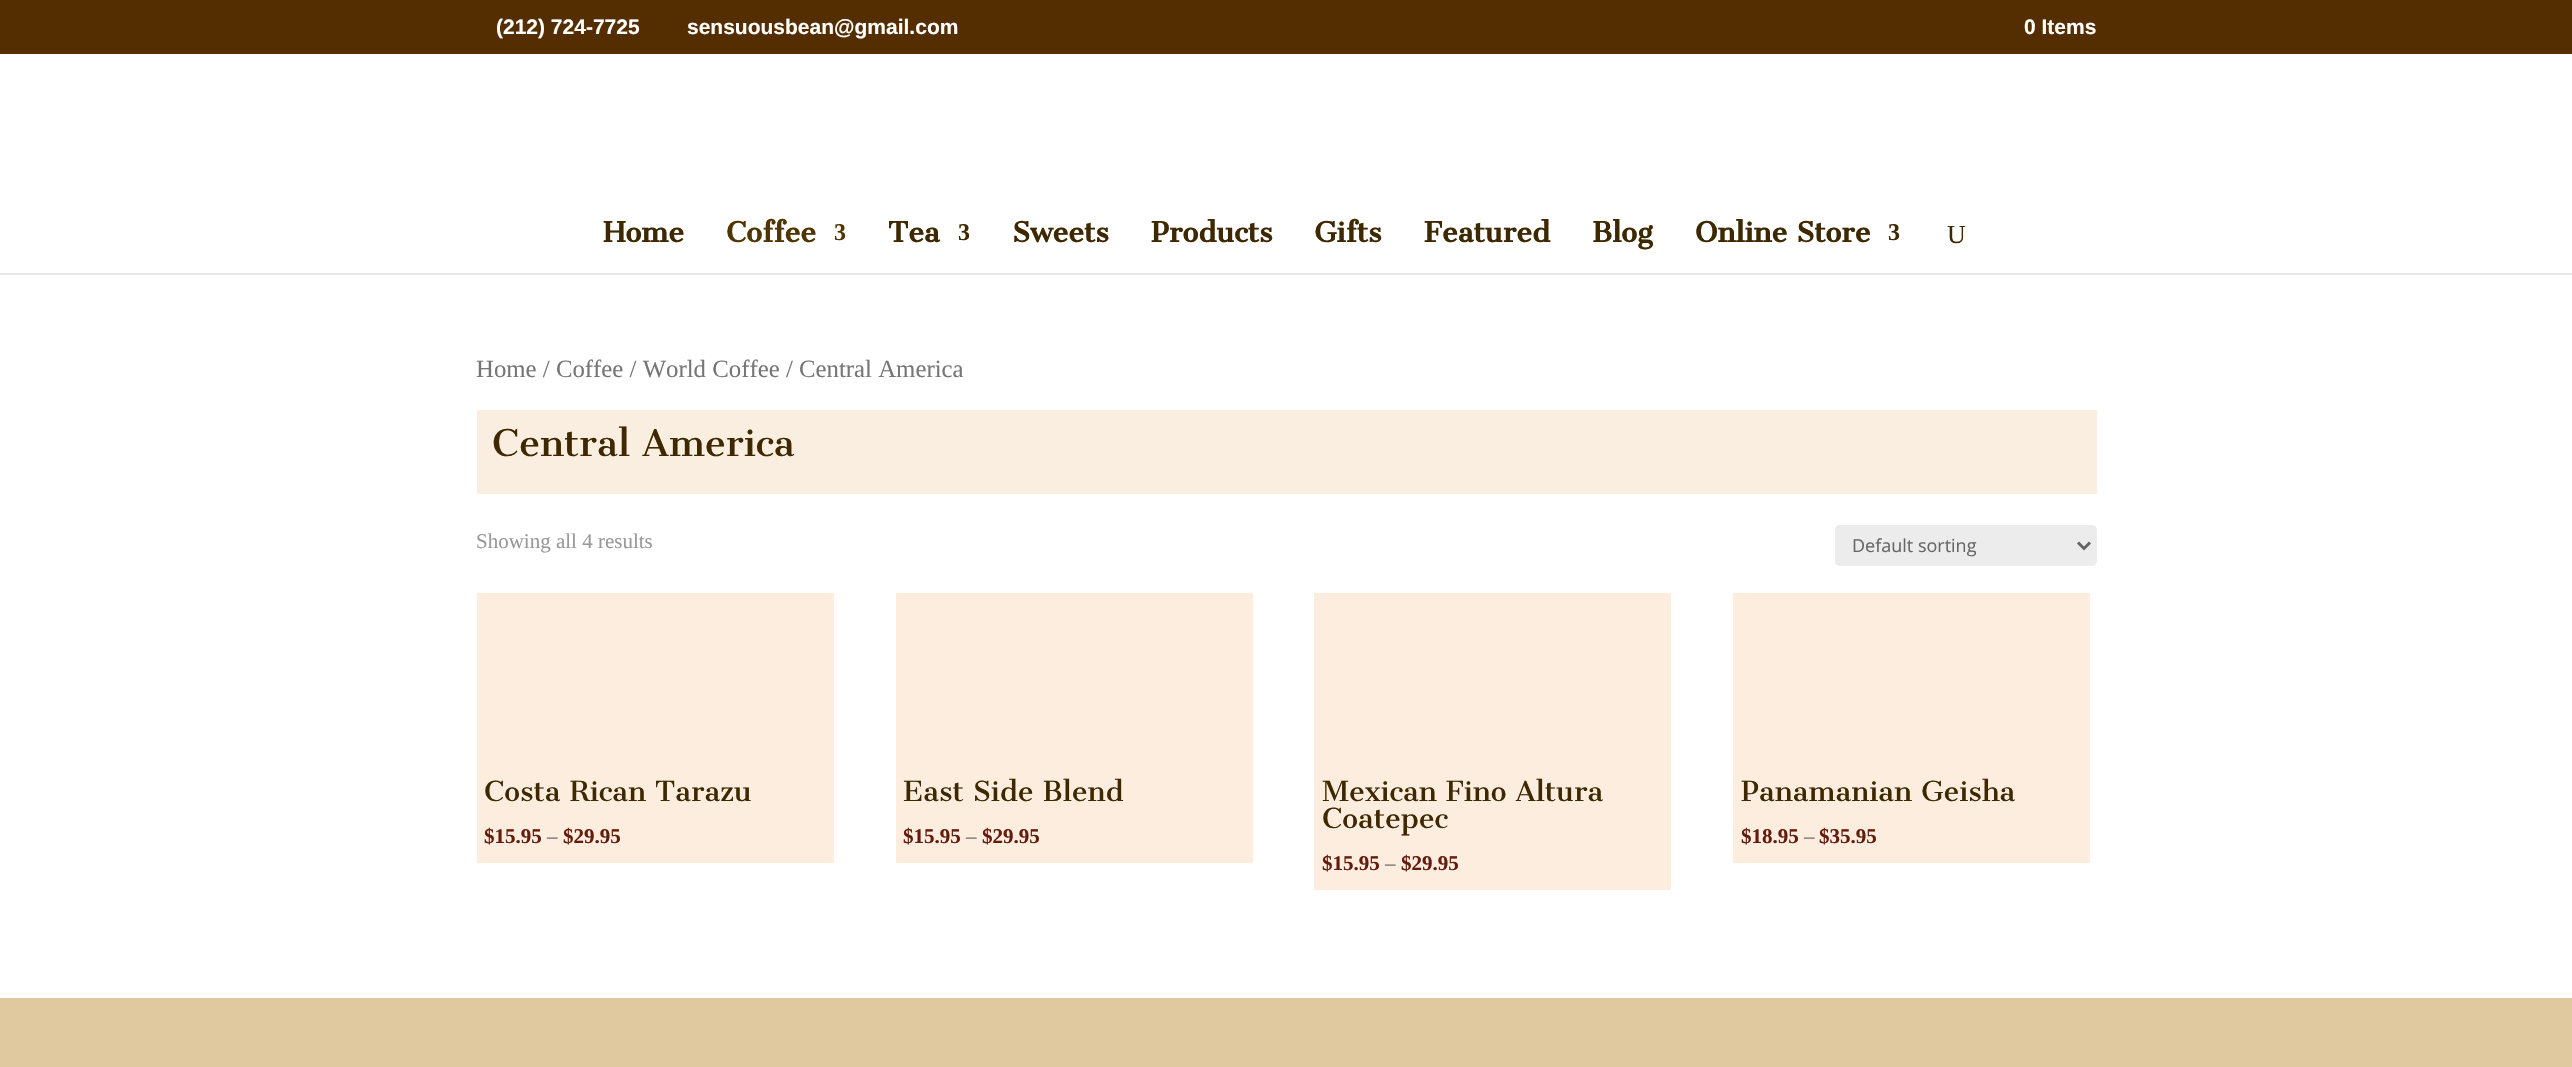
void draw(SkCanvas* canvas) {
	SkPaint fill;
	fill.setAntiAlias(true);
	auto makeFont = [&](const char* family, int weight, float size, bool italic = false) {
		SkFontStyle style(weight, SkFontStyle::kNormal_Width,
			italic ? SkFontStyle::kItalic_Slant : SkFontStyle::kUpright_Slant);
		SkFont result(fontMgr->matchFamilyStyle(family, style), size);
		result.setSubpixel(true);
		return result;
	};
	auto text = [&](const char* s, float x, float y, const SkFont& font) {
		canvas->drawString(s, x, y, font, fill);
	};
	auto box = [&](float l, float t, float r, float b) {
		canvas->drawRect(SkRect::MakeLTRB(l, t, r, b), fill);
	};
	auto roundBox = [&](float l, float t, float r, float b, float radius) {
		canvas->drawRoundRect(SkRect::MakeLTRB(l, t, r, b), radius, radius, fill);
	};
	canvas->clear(0xFFFFFFFF);
	fill.setColor(0xFF542E00);
	box(0, 0, 2572, 54);
	fill.setColor(0xFFE6E6E6);
	canvas->drawPath(SkPathBuilder().moveTo(0, 273).lineTo(0, 275).lineTo(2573, 275).lineTo(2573, 47).lineTo(2572, 47).lineTo(2572, 273).close().detach(), fill);
	fill.setColor(0xFFFAEEE0);
	box(477, 410, 2097, 494);
	fill.setColor(0xFFECECEC);
	roundBox(1835, 525, 2097, 566, 5);
	fill.setStyle(SkPaint::kStroke_Style);
	fill.setStrokeWidth(3);
	fill.setColor(0xFF666666);
	canvas->drawPath(SkPathBuilder().moveTo(2078, 542.5f).lineTo(2084, 548.5f).lineTo(2090, 542.5f).detach(), fill);
	fill.setStyle(SkPaint::kFill_Style);
	fill.setColor(0xFFFDEDDE);
	box(477, 593, 834, 863);
	box(896, 593, 1253, 863);
	box(1314, 593, 1671, 890);
	box(1733, 593, 2090, 863);
	fill.setColor(0xFFE0C89F);
	box(0, 998, 2572, 1067);
	auto font1 = makeFont("Liberation Sans", 700, 21);
	fill.setColor(0xFFFFFFFF);
	text("(212) 724-7725", 496, 34, font1);
	text("sensuousbean@gmail.com", 687, 34, font1);
	text("0 Items", 2024, 34, font1);
	auto font2 = makeFont("Cantata One", 700, 27);
	fill.setColor(0xFF3D2800);
	text("Home", 603, 242, font2);
	fill.setColor(0xFF4F3600);
	text("Coffee", 726, 242, font2);
	auto font3 = makeFont("Liberation Serif", 700, 24);
	text("3", 834, 240, font3);
	fill.setColor(0xFF3D2800);
	text("Tea", 888, 242, font2);
	text("3", 958, 240, font3);
	text("Sweets", 1012, 242, font2);
	text("Products", 1151, 242, font2);
	text("Gifts", 1314, 242, font2);
	text("Featured", 1424, 242, font2);
	text("Blog", 1592, 242, font2);
	text("Online Store", 1695, 242, font2);
	text("3", 1888, 240, font3);
	auto font4 = makeFont("Liberation Serif", 400, 26);
	text("U", 1947, 243, font4);
	auto font5 = makeFont("Liberation Serif", 400, 24.8f);
	fill.setColor(0xFF767676);
	text("Home / Coffee / World Coffee / Central America", 476, 377, font5);
	auto font6 = makeFont("Cantata One", 400, 36);
	fill.setColor(0xFF3D2800);
	text("Central America", 492, 456, font6);
	auto font7 = makeFont("Liberation Serif", 400, 21);
	fill.setColor(0xFF999999);
	text("Showing all 4 results", 476, 548, font7);
	auto font8 = makeFont("Open Sans", 400, 18);
	fill.setColor(0xFF666666);
	text("Default sorting", 1852, 552, font8);
	auto font9 = makeFont("Cantata One", 400, 27);
	fill.setColor(0xFF3D2800);
	text("Costa Rican Tarazu", 484, 801, font9);
	auto font10 = makeFont("Liberation Serif", 700, 21);
	fill.setColor(0xFF631C0D);
	text("$15.95", 484, 843, font10);
	fill.setColor(0xFF666666);
	text("–", 547, 843, font7);
	fill.setColor(0xFF631C0D);
	text("$29.95", 563, 843, font10);
	fill.setColor(0xFF3D2800);
	text("East Side Blend", 903, 801, font9);
	fill.setColor(0xFF631C0D);
	text("$15.95", 903, 843, font10);
	fill.setColor(0xFF666666);
	text("–", 966, 843, font7);
	fill.setColor(0xFF631C0D);
	text("$29.95", 982, 843, font10);
	fill.setColor(0xFF3D2800);
	text("Mexican Fino Altura", 1322, 801, font9);
	text("Coatepec", 1322, 828, font9);
	fill.setColor(0xFF631C0D);
	text("$15.95", 1322, 870, font10);
	fill.setColor(0xFF666666);
	text("–", 1385, 870, font7);
	fill.setColor(0xFF631C0D);
	text("$29.95", 1401, 870, font10);
	fill.setColor(0xFF3D2800);
	text("Panamanian Geisha", 1741, 801, font9);
	fill.setColor(0xFF631C0D);
	text("$18.95", 1741, 843, font10);
	fill.setColor(0xFF666666);
	text("–", 1804, 843, font7);
	fill.setColor(0xFF631C0D);
	text("$35.95", 1819, 843, font10);
}
